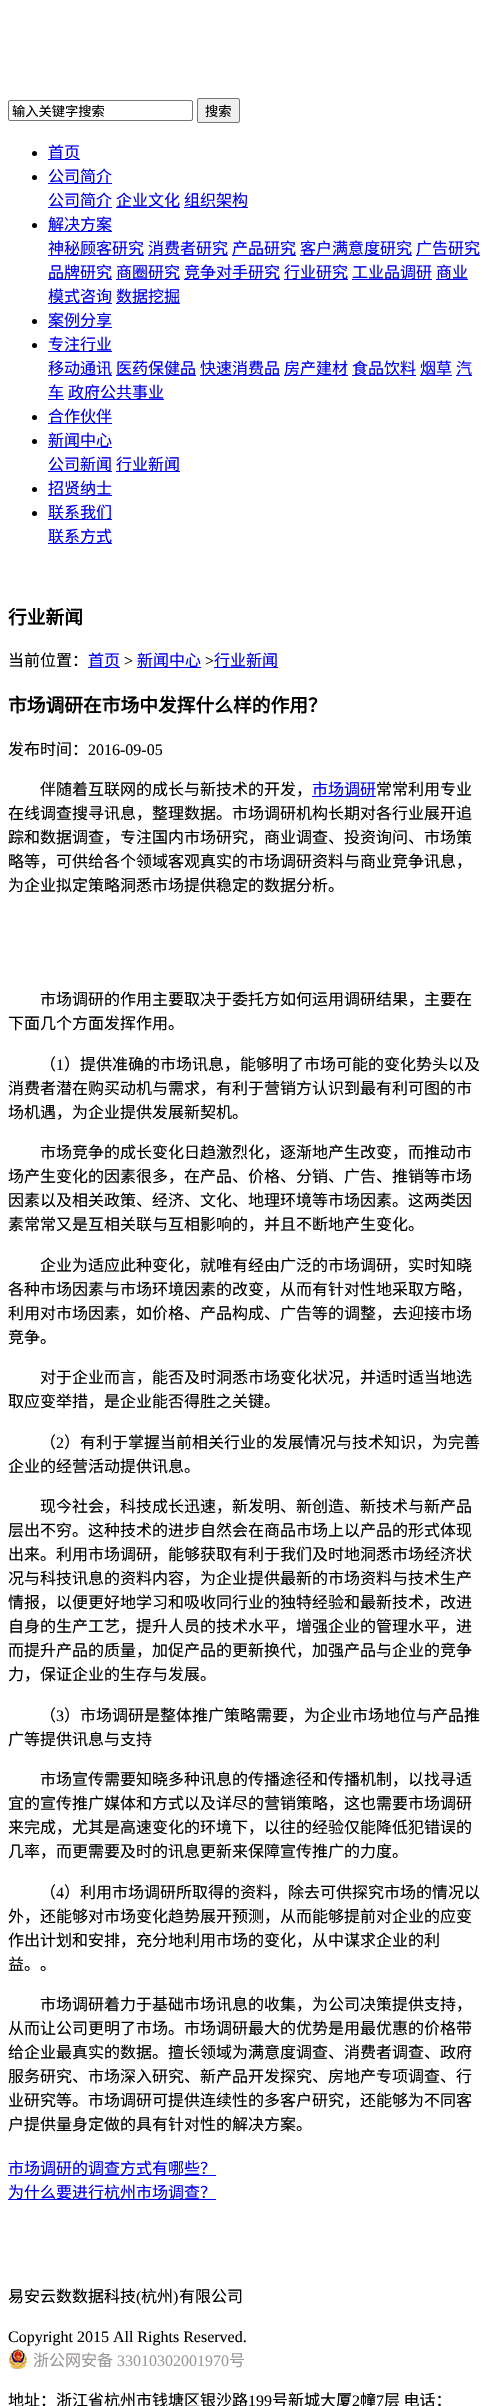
void draw(SkCanvas* canvas) {
	SkPaint fill;
	fill.setAntiAlias(true);
	auto makeFont = [&](const char* family, int weight, float size, bool italic = false) {
		SkFontStyle style(weight, SkFontStyle::kNormal_Width,
			italic ? SkFontStyle::kItalic_Slant : SkFontStyle::kUpright_Slant);
		SkFont result(fontMgr->matchFamilyStyle(family, style), size);
		result.setSubpixel(true);
		return result;
	};
	auto text = [&](const char* s, float x, float y, const SkFont& font) {
		canvas->drawString(s, x, y, font, fill);
	};
	auto box = [&](float l, float t, float r, float b) {
		canvas->drawRect(SkRect::MakeLTRB(l, t, r, b), fill);
	};
	auto picture = [&](const char* path, float l, float t, float r, float b) {
		auto image = SkImages::DeferredFromEncodedData(SkData::MakeFromFileName(path));
		canvas->drawImageRect(image, SkRect::MakeLTRB(l, t, r, b), SkSamplingOptions());
	};
	canvas->clear(0xFFFFFFFF);
	fill.setStyle(SkPaint::kStroke_Style);
	fill.setStrokeWidth(1);
	fill.setColor(0xFF767676);
	canvas->drawRoundRect(SkRect::MakeLTRB(8.5f, 100.5f, 192.5f, 120.5f), 1.5f, 1.5f, fill);
	fill.setStyle(SkPaint::kFill_Style);
	fill.setColor(0xFFEFEFEF);
	canvas->drawRoundRect(SkRect::MakeLTRB(197.5f, 98.5f, 239.5f, 122.5f), 1.5f, 1.5f, fill);
	fill.setStyle(SkPaint::kStroke_Style);
	fill.setColor(0xFF767676);
	canvas->drawRoundRect(SkRect::MakeLTRB(197.5f, 98.5f, 239.5f, 122.5f), 1.5f, 1.5f, fill);
	fill.setStyle(SkPaint::kFill_Style);
	fill.setColor(0xFF000000);
	canvas->drawCircle(34.5f, 153.5f, 2.5f, fill);
	fill.setColor(0xFF0000EE);
	box(48, 159, 80, 160);
	fill.setColor(0xFF000000);
	canvas->drawCircle(34.5f, 177.5f, 2.5f, fill);
	fill.setColor(0xFF0000EE);
	box(48, 183, 112, 184);
	box(48, 207, 112, 208);
	box(116, 207, 180, 208);
	box(184, 207, 248, 208);
	fill.setColor(0xFF000000);
	canvas->drawCircle(34.5f, 225.5f, 2.5f, fill);
	fill.setColor(0xFF0000EE);
	box(48, 231, 112, 232);
	box(48, 255, 144, 256);
	box(148, 255, 228, 256);
	box(232, 255, 296, 256);
	box(300, 255, 412, 256);
	box(416, 255, 480, 256);
	box(48, 279, 112, 280);
	box(116, 279, 180, 280);
	box(184, 279, 280, 280);
	box(284, 279, 348, 280);
	box(352, 279, 432, 280);
	box(436, 279, 468, 280);
	box(48, 303, 112, 304);
	box(116, 303, 180, 304);
	fill.setColor(0xFF000000);
	canvas->drawCircle(34.5f, 321.5f, 2.5f, fill);
	fill.setColor(0xFF0000EE);
	box(48, 327, 112, 328);
	fill.setColor(0xFF000000);
	canvas->drawCircle(34.5f, 345.5f, 2.5f, fill);
	fill.setColor(0xFF0000EE);
	box(48, 351, 112, 352);
	box(48, 375, 112, 376);
	box(116, 375, 196, 376);
	box(200, 375, 280, 376);
	box(284, 375, 348, 376);
	box(352, 375, 416, 376);
	box(420, 375, 452, 376);
	box(456, 375, 472, 376);
	box(48, 399, 64, 400);
	box(68, 399, 164, 400);
	fill.setColor(0xFF000000);
	canvas->drawCircle(34.5f, 417.5f, 2.5f, fill);
	fill.setColor(0xFF0000EE);
	box(48, 423, 112, 424);
	fill.setColor(0xFF000000);
	canvas->drawCircle(34.5f, 441.5f, 2.5f, fill);
	fill.setColor(0xFF0000EE);
	box(48, 447, 112, 448);
	box(48, 471, 112, 472);
	box(116, 471, 180, 472);
	fill.setColor(0xFF000000);
	canvas->drawCircle(34.5f, 489.5f, 2.5f, fill);
	fill.setColor(0xFF0000EE);
	box(48, 495, 112, 496);
	fill.setColor(0xFF000000);
	canvas->drawCircle(34.5f, 513.5f, 2.5f, fill);
	fill.setColor(0xFF0000EE);
	box(48, 519, 112, 520);
	box(48, 543, 112, 544);
	box(88, 667, 120, 668);
	box(137, 667, 201, 668);
	box(214, 667, 278, 668);
	box(312, 796, 376, 797);
	box(8, 2175, 216, 2176);
	box(8, 2199, 216, 2200);
	picture("image0.png", 9, 2349, 27, 2369);
	auto font1 = makeFont("Noto Sans CJK SC", 400, 13.25f);
	fill.setColor(0xFF000000);
	text("输入关键字搜索", 12, 116, font1);
	text("搜索", 205, 116, font1);
	auto font2 = makeFont("Noto Sans CJK SC", 400, 16);
	fill.setColor(0xFF0000EE);
	text("首页", 48, 158, font2);
	text("公司简介", 48, 182, font2);
	text("公司简介", 48, 206, font2);
	text("企业文化", 116, 206, font2);
	text("组织架构", 184, 206, font2);
	text("解决方案", 48, 230, font2);
	text("神秘顾客研究", 48, 254, font2);
	text("消费者研究", 148, 254, font2);
	text("产品研究", 232, 254, font2);
	text("客户满意度研究", 300, 254, font2);
	text("广告研究", 416, 254, font2);
	text("品牌研究", 48, 278, font2);
	text("商圈研究", 116, 278, font2);
	text("竞争对手研究", 184, 278, font2);
	text("行业研究", 284, 278, font2);
	text("工业品调研", 352, 278, font2);
	text("商业", 436, 278, font2);
	text("模式咨询", 48, 302, font2);
	text("数据挖掘", 116, 302, font2);
	text("案例分享", 48, 326, font2);
	text("专注行业", 48, 350, font2);
	text("移动通讯", 48, 374, font2);
	text("医药保健品", 116, 374, font2);
	text("快速消费品", 200, 374, font2);
	text("房产建材", 284, 374, font2);
	text("食品饮料", 352, 374, font2);
	text("烟草", 420, 374, font2);
	text("汽", 456, 374, font2);
	text("车", 48, 398, font2);
	text("政府公共事业", 68, 398, font2);
	text("合作伙伴", 48, 422, font2);
	text("新闻中心", 48, 446, font2);
	text("公司新闻", 48, 470, font2);
	text("行业新闻", 116, 470, font2);
	text("招贤纳士", 48, 494, font2);
	text("联系我们", 48, 518, font2);
	text("联系方式", 48, 542, font2);
	auto font3 = makeFont("Noto Sans CJK SC", 700, 18.75f);
	fill.setColor(0xFF000000);
	text("行业新闻", 8, 624, font3);
	text("当前位置：", 8, 666, font2);
	fill.setColor(0xFF0000EE);
	text("首页", 88, 666, font2);
	auto font4 = makeFont("Liberation Serif", 400, 16);
	fill.setColor(0xFF000000);
	text(">", 124, 666, font4);
	fill.setColor(0xFF0000EE);
	text("新闻中心", 137, 666, font2);
	fill.setColor(0xFF000000);
	text(">", 205, 666, font4);
	fill.setColor(0xFF0000EE);
	text("行业新闻", 214, 666, font2);
	fill.setColor(0xFF000000);
	text("市场调研在市场中发挥什么样的作用？", 8, 712, font3);
	text("发布时间：", 8, 755, font2);
	text("2016-09-05", 88, 755, font4);
	text("伴随着互联网的成长与新技术的开发，", 40, 795, font2);
	fill.setColor(0xFF0000EE);
	text("市场调研", 312, 795, font2);
	fill.setColor(0xFF000000);
	text("常常利用专业", 376, 795, font2);
	text("在线调查搜寻讯息，整理数据。市场调研机构长期对各行业展开追", 8, 819, font2);
	text("踪和数据调查，专注国内市场研究，商业调查、投资询问、市场策", 8, 843, font2);
	text("略等，可供给各个领域客观真实的市场调研资料与商业竞争讯息，", 8, 867, font2);
	text("为企业拟定策略洞悉市场提供稳定的数据分析。", 8, 891, font2);
	text("市场调研的作用主要取决于委托方如何运用调研结果，主要在", 40, 1005, font2);
	text("下面几个方面发挥作用。", 8, 1029, font2);
	text("（", 40, 1070, font2);
	text("1", 56, 1070, font4);
	text("）提供准确的市场讯息，能够明了市场可能的变化势头以及", 64, 1070, font2);
	text("消费者潜在购买动机与需求，有利于营销方认识到最有利可图的市", 8, 1094, font2);
	text("场机遇，为企业提供发展新契机。", 8, 1118, font2);
	text("市场竞争的成长变化日趋激烈化，逐渐地产生改变，而推动市", 40, 1158, font2);
	text("场产生变化的因素很多，在产品、价格、分销、广告、推销等市场", 8, 1182, font2);
	text("因素以及相关政策、经济、文化、地理环境等市场因素。这两类因", 8, 1206, font2);
	text("素常常又是互相关联与互相影响的，并且不断地产生变化。", 8, 1230, font2);
	text("企业为适应此种变化，就唯有经由广泛的市场调研，实时知晓", 40, 1271, font2);
	text("各种市场因素与市场环境因素的改变，从而有针对性地采取方略，", 8, 1295, font2);
	text("利用对市场因素，如价格、产品构成、广告等的调整，去迎接市场", 8, 1319, font2);
	text("竞争。", 8, 1343, font2);
	text("对于企业而言，能否及时洞悉市场变化状况，并适时适当地选", 40, 1383, font2);
	text("取应变举措，是企业能否得胜之关键。", 8, 1407, font2);
	text("（", 40, 1448, font2);
	text("2", 56, 1448, font4);
	text("）有利于掌握当前相关行业的发展情况与技术知识，为完善", 64, 1448, font2);
	text("企业的经营活动提供讯息。", 8, 1472, font2);
	text("现今社会，科技成长迅速，新发明、新创造、新技术与新产品", 40, 1512, font2);
	text("层出不穷。这种技术的进步自然会在商品市场上以产品的形式体现", 8, 1536, font2);
	text("出来。利用市场调研，能够获取有利于我们及时地洞悉市场经济状", 8, 1560, font2);
	text("况与科技讯息的资料内容，为企业提供最新的市场资料与技术生产", 8, 1584, font2);
	text("情报，以便更好地学习和吸收同行业的独特经验和最新技术，改进", 8, 1608, font2);
	text("自身的生产工艺，提升人员的技术水平，增强企业的管理水平，进", 8, 1632, font2);
	text("而提升产品的质量，加促产品的更新换代，加强产品与企业的竞争", 8, 1656, font2);
	text("力，保证企业的生存与发展。", 8, 1680, font2);
	text("（", 40, 1721, font2);
	text("3", 56, 1721, font4);
	text("）市场调研是整体推广策略需要，为企业市场地位与产品推", 64, 1721, font2);
	text("广等提供讯息与支持", 8, 1745, font2);
	text("市场宣传需要知晓多种讯息的传播途径和传播机制，以找寻适", 40, 1785, font2);
	text("宜的宣传推广媒体和方式以及详尽的营销策略，这也需要市场调研", 8, 1809, font2);
	text("来完成，尤其是高速变化的环境下，以往的经验仅能降低犯错误的", 8, 1833, font2);
	text("几率，而更需要及时的讯息更新来保障宣传推广的力度。", 8, 1857, font2);
	text("（", 40, 1898, font2);
	text("4", 56, 1898, font4);
	text("）利用市场调研所取得的资料，除去可供探究市场的情况以", 64, 1898, font2);
	text("外，还能够对市场变化趋势展开预测，从而能够提前对企业的应变", 8, 1922, font2);
	text("作出计划和安排，充分地利用市场的变化，从中谋求企业的利", 8, 1946, font2);
	text("益。。", 8, 1970, font2);
	text("市场调研着力于基础市场讯息的收集，为公司决策提供支持，", 40, 2010, font2);
	text("从而让公司更明了市场。市场调研最大的优势是用最优惠的价格带", 8, 2034, font2);
	text("给企业最真实的数据。擅长领域为满意度调查、消费者调查、政府", 8, 2058, font2);
	text("服务研究、市场深入研究、新产品开发探究、房地产专项调查、行", 8, 2082, font2);
	text("业研究等。市场调研可提供连续性的多客户研究，还能够为不同客", 8, 2106, font2);
	text("户提供量身定做的具有针对性的解决方案。", 8, 2130, font2);
	fill.setColor(0xFF0000EE);
	text("市场调研的调查方式有哪些？", 8, 2174, font2);
	text("为什么要进行杭州市场调查？", 8, 2198, font2);
	fill.setColor(0xFF000000);
	text("易安云数数据科技", 8, 2302, font2);
	text("(", 136, 2302, font4);
	text("杭州", 141, 2302, font2);
	text(")", 173, 2302, font4);
	text("有限公司", 179, 2302, font2);
	text("Copyright 2015 All Rights Reserved.", 8, 2342, font4);
	fill.setColor(0xFF9C9797);
	text("浙公网安备", 33, 2366, font2);
	text("33010302001970", 117, 2366, font4);
	text("号", 229, 2366, font2);
	fill.setColor(0xFF000000);
	text("地址：浙江省杭州市钱塘区银沙路", 8, 2406, font2);
	text("199", 248, 2406, font4);
	text("号新城大厦", 272, 2406, font2);
	text("2", 352, 2406, font4);
	text("幢", 360, 2406, font2);
	text("7", 376, 2406, font4);
	text("层 电话：", 384, 2406, font2);
}
